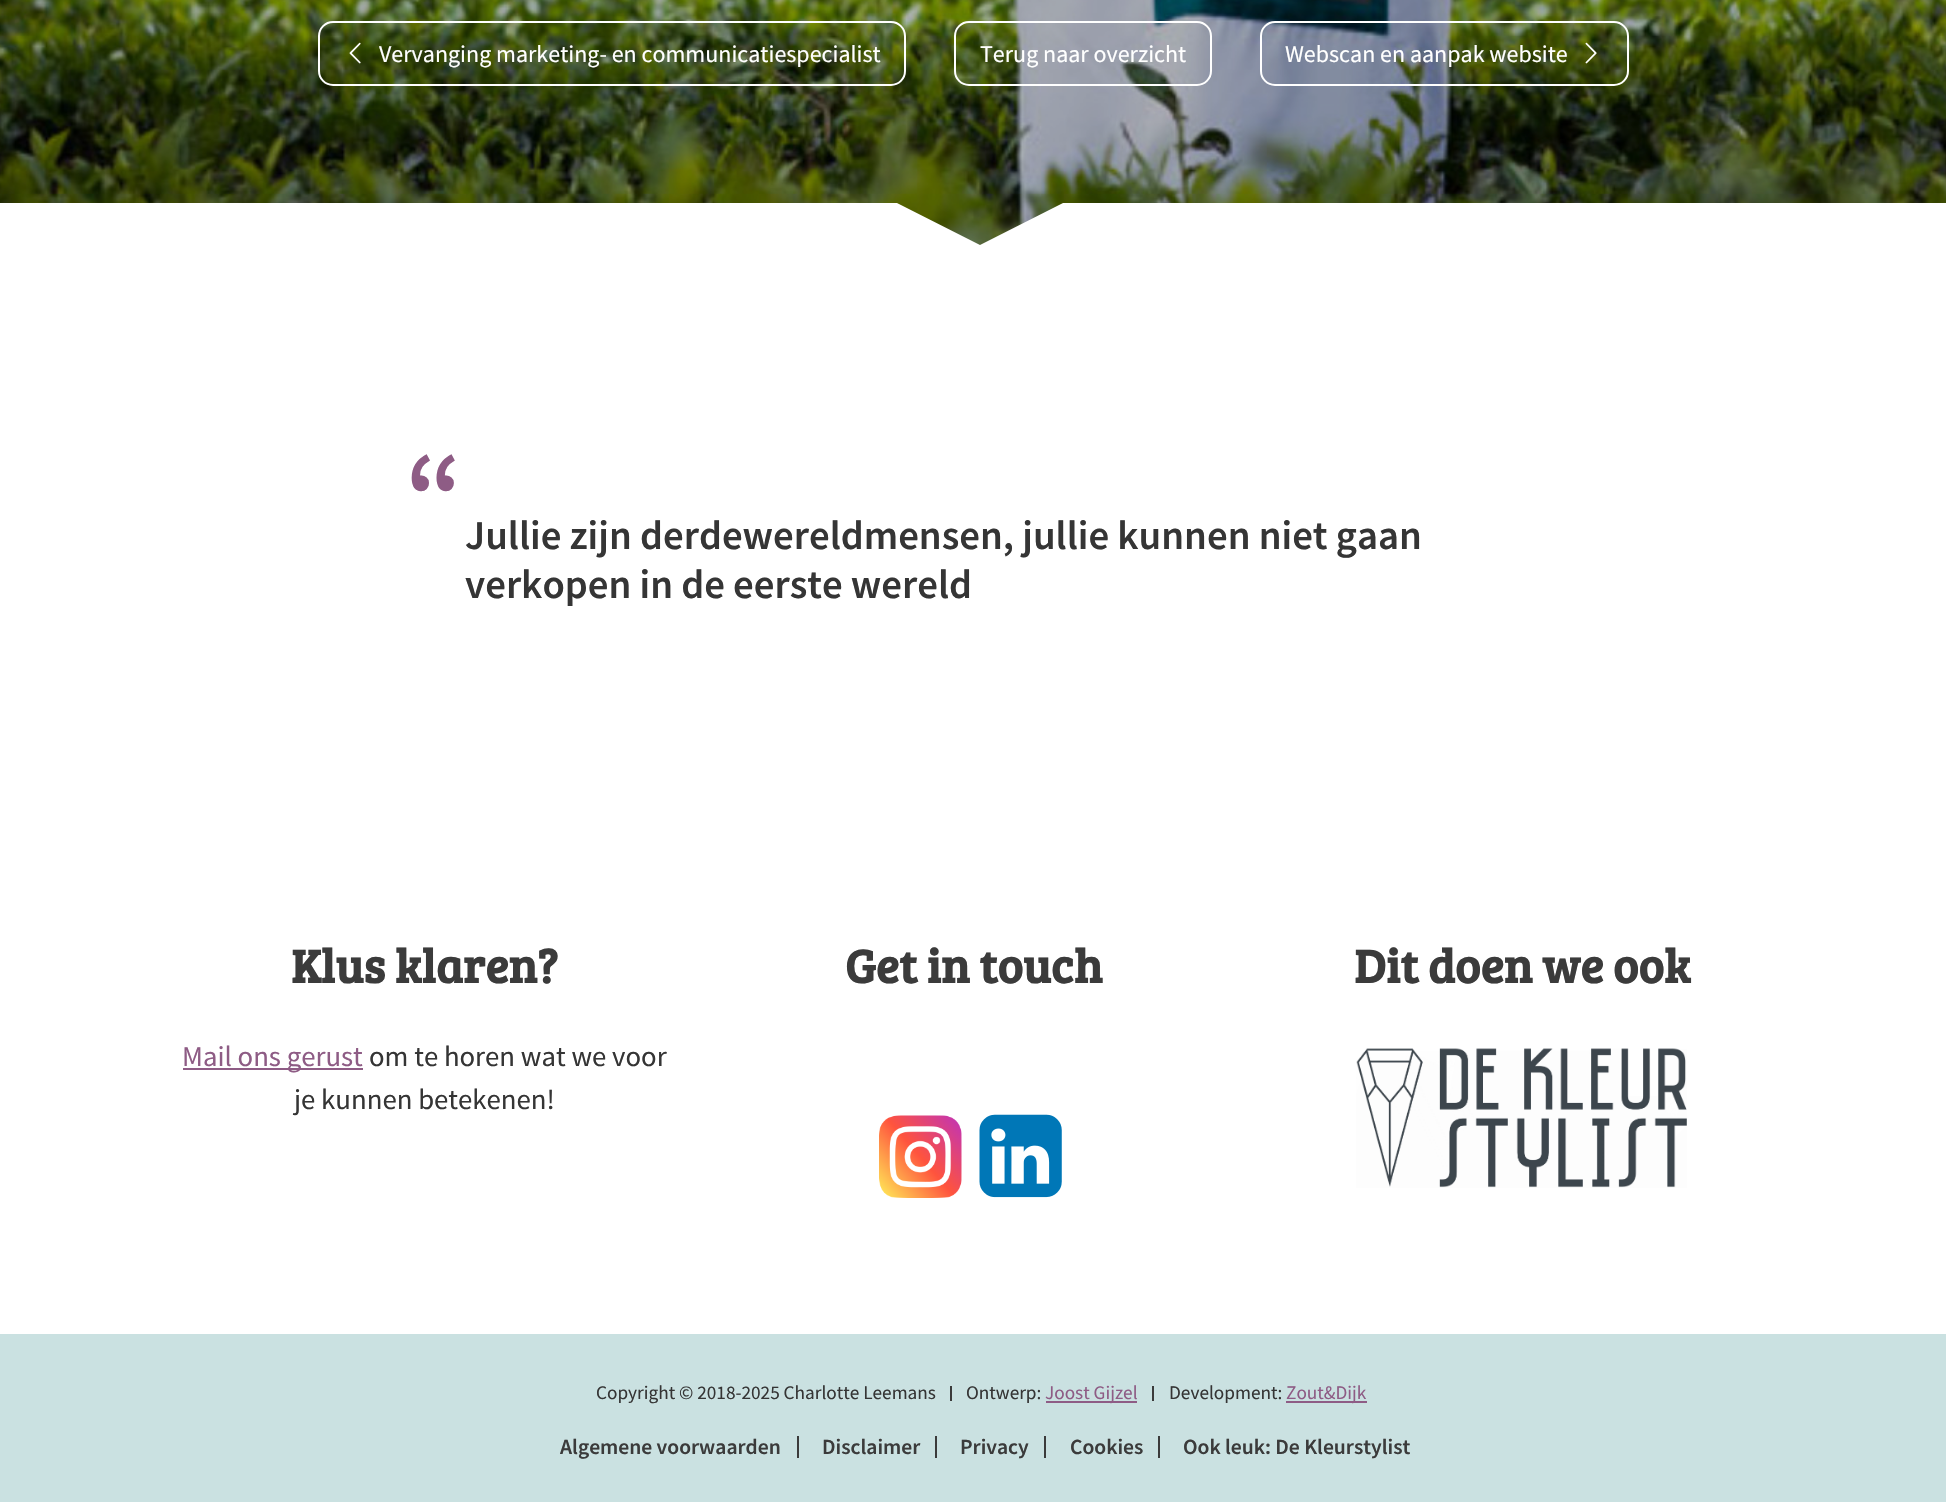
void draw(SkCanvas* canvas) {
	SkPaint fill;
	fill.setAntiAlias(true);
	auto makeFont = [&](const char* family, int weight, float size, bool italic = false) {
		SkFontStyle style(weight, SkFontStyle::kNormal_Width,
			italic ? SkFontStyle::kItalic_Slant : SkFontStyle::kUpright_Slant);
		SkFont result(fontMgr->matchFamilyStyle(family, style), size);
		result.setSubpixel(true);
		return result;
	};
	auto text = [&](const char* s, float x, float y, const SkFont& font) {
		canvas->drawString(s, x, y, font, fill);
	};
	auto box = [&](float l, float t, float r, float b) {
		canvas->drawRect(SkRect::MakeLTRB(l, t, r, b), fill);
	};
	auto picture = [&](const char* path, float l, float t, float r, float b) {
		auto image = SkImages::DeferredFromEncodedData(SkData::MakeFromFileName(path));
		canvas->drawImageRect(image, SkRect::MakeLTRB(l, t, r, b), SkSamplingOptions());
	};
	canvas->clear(0xFFCAE1E1);
	picture("image0.png", 0, 0, 1946, 245);
	fill.setStyle(SkPaint::kStroke_Style);
	fill.setStrokeWidth(2);
	fill.setColor(0xFFFFFFFF);
	canvas->drawRoundRect(SkRect::MakeLTRB(319, 22, 905, 85), 14, 14, fill);
	picture("image1.png", 349, 42, 361, 64);
	canvas->drawRoundRect(SkRect::MakeLTRB(955, 22, 1211, 85), 14, 14, fill);
	canvas->drawRoundRect(SkRect::MakeLTRB(1261, 22, 1628, 85), 14, 14, fill);
	picture("image2.png", 1585, 42, 1597, 64);
	canvas->save();
	canvas->clipRect(SkRect::MakeLTRB(0, 203, 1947, 284));
	fill.setStyle(SkPaint::kFill_Style);
	canvas->drawPath(SkPathBuilder().moveTo(1065, 202).lineTo(980, 245).lineTo(895, 202).lineTo(-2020, 202).lineTo(-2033, 284).lineTo(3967, 284).lineTo(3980, 202).close().detach(), fill);
	canvas->restore();
	box(0, 284, 1946, 1334);
	fill.setColor(0xFF8E5C85);
	box(183, 1068, 363, 1070);
	picture("image3.png", 879, 1115, 962, 1198);
	picture("image4.png", 979, 1114, 1062, 1198);
	picture("image5.png", 1356, 1048, 1687, 1188);
	fill.setColor(0xFF3B3B3B);
	box(950, 1386, 952, 1401);
	fill.setColor(0xFF8E5C85);
	box(1046, 1401, 1137, 1403);
	fill.setColor(0xFF3B3B3B);
	box(1152, 1386, 1154, 1401);
	fill.setColor(0xFF8E5C85);
	box(1286, 1401, 1367, 1403);
	fill.setColor(0xFF3B3B3B);
	box(797, 1436, 799, 1458);
	box(935, 1436, 937, 1458);
	box(1044, 1436, 1046, 1458);
	box(1158, 1436, 1160, 1458);
	auto font1 = makeFont("Source Sans Pro", 400, 24);
	fill.setColor(0xFFFFFFFF);
	text("Vervanging marketing- en communicatiespecialist", 379, 62, font1);
	text("Terug naar overzicht", 980, 62, font1);
	text("Webscan en aanpak website", 1285, 62, font1);
	auto font2 = makeFont("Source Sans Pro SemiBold", 600, 120);
	fill.setColor(0xFF8E5C85);
	text("“", 405, 537, font2);
	auto font3 = makeFont("Source Sans Pro SemiBold", 600, 40.8f);
	fill.setColor(0xFF353535);
	text("Jullie zijn derdewereldmensen, jullie kunnen niet gaan", 465, 549, font3);
	text("verkopen in de eerste wereld", 465, 598, font3);
	auto font4 = makeFont("Bree Serif", 700, 48);
	fill.setColor(0xFF3B3B3B);
	text("Klus klaren?", 291, 983, font4);
	auto font5 = makeFont("Source Sans Pro", 400, 28.75f);
	fill.setColor(0xFF8E5C85);
	text("Mail ons gerust", 182, 1066, font5);
	fill.setColor(0xFF353535);
	text("om te horen wat we voor", 369, 1066, font5);
	text("je kunnen betekenen!", 294, 1109, font5);
	fill.setColor(0xFF3B3B3B);
	text("Get in touch", 845, 983, font4);
	text("Dit doen we ook", 1354, 983, font4);
	auto font6 = makeFont("Source Sans Pro", 400, 19.25f);
	fill.setColor(0xFF353535);
	text("Copyright © 2018-2025 Charlotte Leemans", 596, 1399, font6);
	text("Ontwerp:", 966, 1399, font6);
	fill.setColor(0xFF8E5C85);
	text("Joost Gijzel", 1045, 1399, font6);
	fill.setColor(0xFF353535);
	text("Development:", 1169, 1399, font6);
	fill.setColor(0xFF8E5C85);
	text("Zout&Dijk", 1286, 1399, font6);
	auto font7 = makeFont("Source Sans Pro SemiBold", 600, 21.6f);
	fill.setColor(0xFF3B3B3B);
	text("Algemene voorwaarden", 560, 1454, font7);
	text("Disclaimer", 822, 1454, font7);
	text("Privacy", 960, 1454, font7);
	text("Cookies", 1070, 1454, font7);
	text("Ook leuk: De Kleurstylist", 1183, 1454, font7);
}
